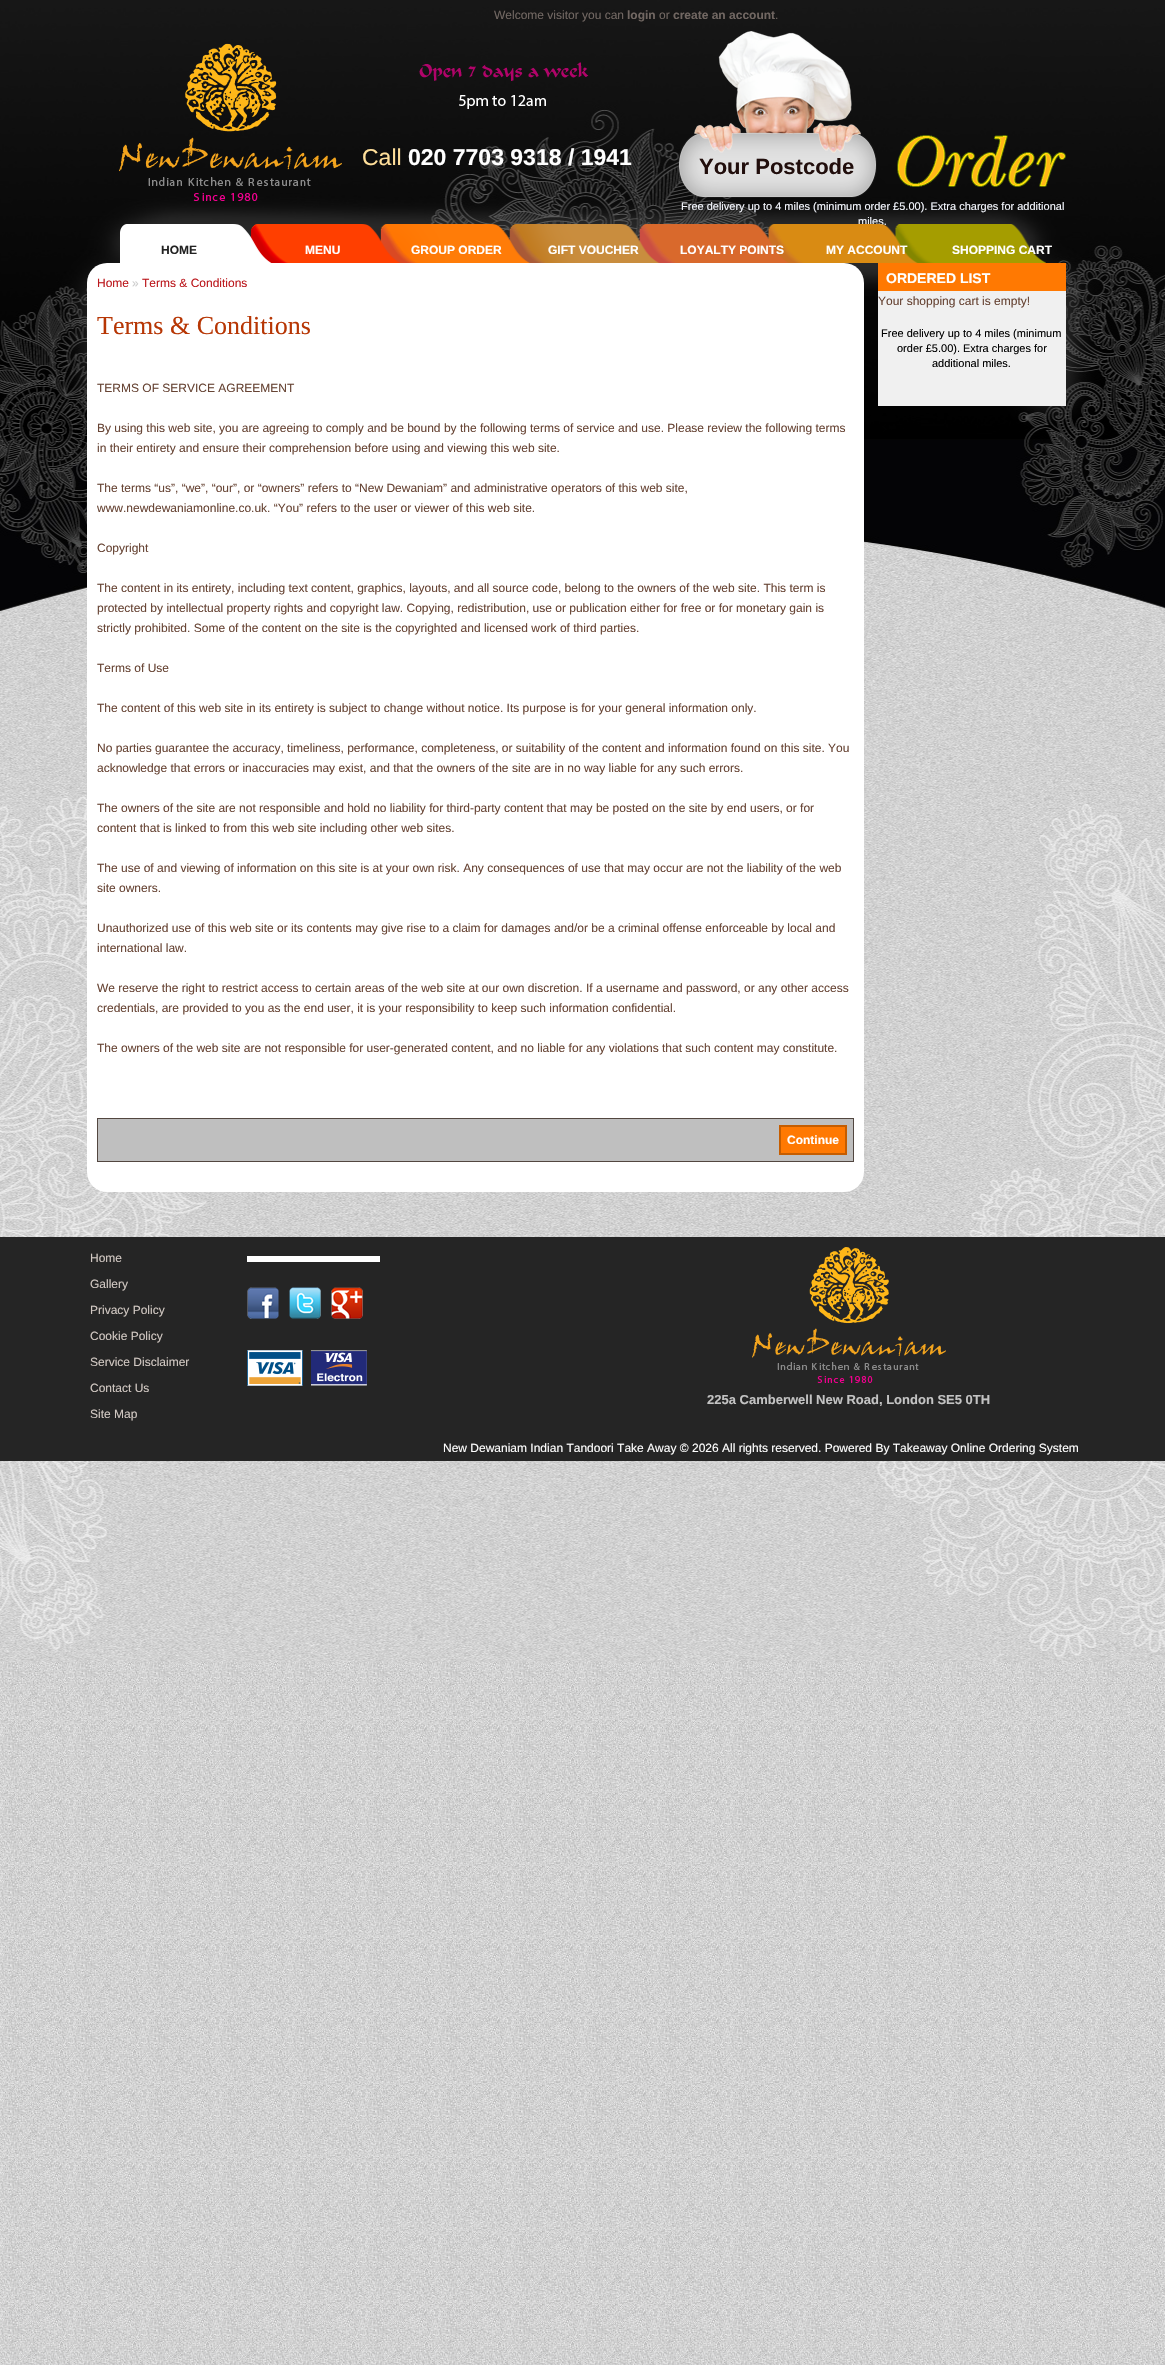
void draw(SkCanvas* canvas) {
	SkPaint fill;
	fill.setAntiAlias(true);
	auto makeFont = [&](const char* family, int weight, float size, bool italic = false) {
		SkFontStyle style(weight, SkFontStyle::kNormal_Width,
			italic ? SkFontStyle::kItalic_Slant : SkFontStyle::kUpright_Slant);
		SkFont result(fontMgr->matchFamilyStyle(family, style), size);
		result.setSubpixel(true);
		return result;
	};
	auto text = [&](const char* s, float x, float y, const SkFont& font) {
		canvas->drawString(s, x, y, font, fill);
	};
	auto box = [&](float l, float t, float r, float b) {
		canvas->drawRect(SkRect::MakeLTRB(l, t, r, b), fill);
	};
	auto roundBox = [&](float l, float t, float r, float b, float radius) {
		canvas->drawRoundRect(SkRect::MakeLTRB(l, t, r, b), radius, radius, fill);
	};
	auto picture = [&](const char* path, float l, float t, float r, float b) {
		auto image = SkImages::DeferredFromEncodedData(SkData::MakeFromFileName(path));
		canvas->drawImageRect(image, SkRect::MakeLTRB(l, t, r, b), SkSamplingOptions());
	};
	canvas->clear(0xFFFFFFFF);
	picture("image0.png", 0, 1662, 1165, 2365);
	picture("image1.png", 0, 0, 1165, 1662);
	picture("image2.png", 119, 43, 342, 201);
	picture("image3.png", 419, 62, 589, 109);
	picture("image4.png", 678, 31, 877, 198);
	picture("image5.png", 897, 135, 1066, 187);
	fill.setColor(0xFFFFFFFF);
	roundBox(87, 263, 864, 1192, 20);
	fill.setColor(0xFFBFBFBF);
	canvas->drawRect(SkRect::MakeLTRB(97.5f, 1118.5f, 853.5f, 1161.5f), fill);
	fill.setStyle(SkPaint::kStroke_Style);
	fill.setStrokeWidth(1);
	fill.setColor(0xFF524640);
	canvas->drawRect(SkRect::MakeLTRB(97.5f, 1118.5f, 853.5f, 1161.5f), fill);
	fill.setStyle(SkPaint::kFill_Style);
	fill.setColor(0xFFFF7902);
	canvas->drawRect(SkRect::MakeLTRB(780, 1126, 846, 1154), fill);
	fill.setStyle(SkPaint::kStroke_Style);
	fill.setStrokeWidth(2);
	fill.setColor(0xFFC55D00);
	canvas->drawRect(SkRect::MakeLTRB(780, 1126, 846, 1154), fill);
	fill.setStyle(SkPaint::kFill_Style);
	fill.setColor(0xFFFF7902);
	box(878, 263, 1066, 291);
	fill.setColor(0xFFF0F0F0);
	box(878, 291, 1066, 406);
	fill.setColor(0xFF252525);
	box(0, 1237, 1165, 1461);
	fill.setColor(0xFFFFFFFF);
	box(247, 1256, 380, 1262);
	picture("image7.png", 247, 1287, 279, 1319);
	picture("image8.png", 289, 1287, 321, 1319);
	picture("image9.png", 331, 1287, 363, 1319);
	picture("image10.png", 247, 1350, 367, 1386);
	picture("image11.png", 752, 1247, 946, 1383);
	auto font1 = makeFont("Liberation Sans", 400, 12);
	fill.setColor(0xFF716762);
	text("Welcome visitor you can", 494, 19, font1);
	auto font2 = makeFont("Liberation Sans", 700, 12);
	text("login", 627, 19, font2);
	text("or", 659, 19, font1);
	text("create an account", 673, 19, font2);
	text(".", 775, 19, font1);
	auto font3 = makeFont("Liberation Sans", 400, 23);
	fill.setColor(0xFFFFDF9A);
	text("Call", 362, 165, font3);
	auto font4 = makeFont("Liberation Sans", 700, 23);
	fill.setColor(0xFFFFFFFF);
	text("020 7703 9318 / 1941", 408, 165, font4);
	auto font5 = makeFont("Liberation Sans", 700, 22);
	fill.setColor(0xFF210E0C);
	text("Your Postcode", 699, 174, font5);
	auto font6 = makeFont("Liberation Sans", 400, 11);
	fill.setColor(0xFFF4F7FE);
	text("Free delivery up to 4 miles (minimum order £5.00). Extra charges for additional", 681, 210, font6);
	text("miles.", 858, 225, font6);
	picture("image6.png", 120, 224, 1046, 263);
	fill.setColor(0xFF222222);
	text("HOME", 161, 254, font2);
	fill.setColor(0xFFFFFFFF);
	text("MENU", 305, 254, font2);
	text("GROUP ORDER", 411, 254, font2);
	text("GIFT VOUCHER", 548, 254, font2);
	text("LOYALTY POINTS", 680, 254, font2);
	text("MY ACCOUNT", 826, 254, font2);
	text("SHOPPING CART", 952, 254, font2);
	fill.setColor(0xFFBC191E);
	text("Home", 97, 287, font1);
	fill.setColor(0xFFCCCCCC);
	text("»", 132, 287, font1);
	fill.setColor(0xFFBC191E);
	text("Terms & Conditions", 142, 287, font1);
	auto font7 = makeFont("Liberation Serif", 400, 26);
	fill.setColor(0xFFB73604);
	text("Terms & Conditions", 97, 334, font7);
	fill.setColor(0xFF674434);
	text("TERMS OF SERVICE AGREEMENT", 97, 392, font1);
	text("By using this web site, you are agreeing to comply and be bound by the following terms of service and use. Please review the following terms", 97, 432, font1);
	text("in their entirety and ensure their comprehension before using and viewing this web site.", 97, 452, font1);
	text("The terms “us”, “we”, “our”, or “owners” refers to “New Dewaniam” and administrative operators of this web site,", 97, 492, font1);
	text("www.newdewaniamonline.co.uk. “You” refers to the user or viewer of this web site.", 97, 512, font1);
	text("Copyright", 97, 552, font1);
	text("The content in its entirety, including text content, graphics, layouts, and all source code, belong to the owners of the web site. This term is", 97, 592, font1);
	text("protected by intellectual property rights and copyright law. Copying, redistribution, use or publication either for free or for monetary gain is", 97, 612, font1);
	text("strictly prohibited. Some of the content on the site is the copyrighted and licensed work of third parties.", 97, 632, font1);
	text("Terms of Use", 97, 672, font1);
	text("The content of this web site in its entirety is subject to change without notice. Its purpose is for your general information only.", 97, 712, font1);
	text("No parties guarantee the accuracy, timeliness, performance, completeness, or suitability of the content and information found on this site. You", 97, 752, font1);
	text("acknowledge that errors or inaccuracies may exist, and that the owners of the site are in no way liable for any such errors.", 97, 772, font1);
	text("The owners of the site are not responsible and hold no liability for third-party content that may be posted on the site by end users, or for", 97, 812, font1);
	text("content that is linked to from this web site including other web sites.", 97, 832, font1);
	text("The use of and viewing of information on this site is at your own risk. Any consequences of use that may occur are not the liability of the web", 97, 872, font1);
	text("site owners.", 97, 892, font1);
	text("Unauthorized use of this web site or its contents may give rise to a claim for damages and/or be a criminal offense enforceable by local and", 97, 932, font1);
	text("international law.", 97, 952, font1);
	text("We reserve the right to restrict access to certain areas of the web site at our own discretion. If a username and password, or any other access", 97, 992, font1);
	text("credentials, are provided to you as the end user, it is your responsibility to keep such information confidential.", 97, 1012, font1);
	text("The owners of the web site are not responsible for user-generated content, and no liable for any violations that such content may constitute.", 97, 1052, font1);
	fill.setColor(0xFFFFFFFF);
	text("Continue", 787, 1144, font2);
	auto font8 = makeFont("Liberation Sans", 700, 14);
	text("ORDERED LIST", 886, 283, font8);
	fill.setColor(0xFF674434);
	text("Your shopping cart is empty!", 878, 305, font1);
	fill.setColor(0xFF000000);
	text("Free delivery up to 4 miles (minimum", 881, 337, font6);
	text("order £5.00). Extra charges for", 897, 352, font6);
	text("additional miles.", 932, 367, font6);
	fill.setColor(0xFFD1C8C2);
	text("Home", 90, 1262, font1);
	text("Gallery", 90, 1288, font1);
	text("Privacy Policy", 90, 1314, font1);
	text("Cookie Policy", 90, 1340, font1);
	text("Service Disclaimer", 90, 1366, font1);
	text("Contact Us", 90, 1392, font1);
	text("Site Map", 90, 1418, font1);
	auto font9 = makeFont("Liberation Sans", 700, 13);
	fill.setColor(0xFFC3C3C3);
	text("225a Camberwell New Road, London SE5 0TH", 707, 1404, font9);
	fill.setColor(0xFFFFFFFF);
	text("New Dewaniam Indian Tandoori Take Away © 2026 All rights reserved. Powered By Takeaway Online Ordering System", 443, 1452, font1);
}
